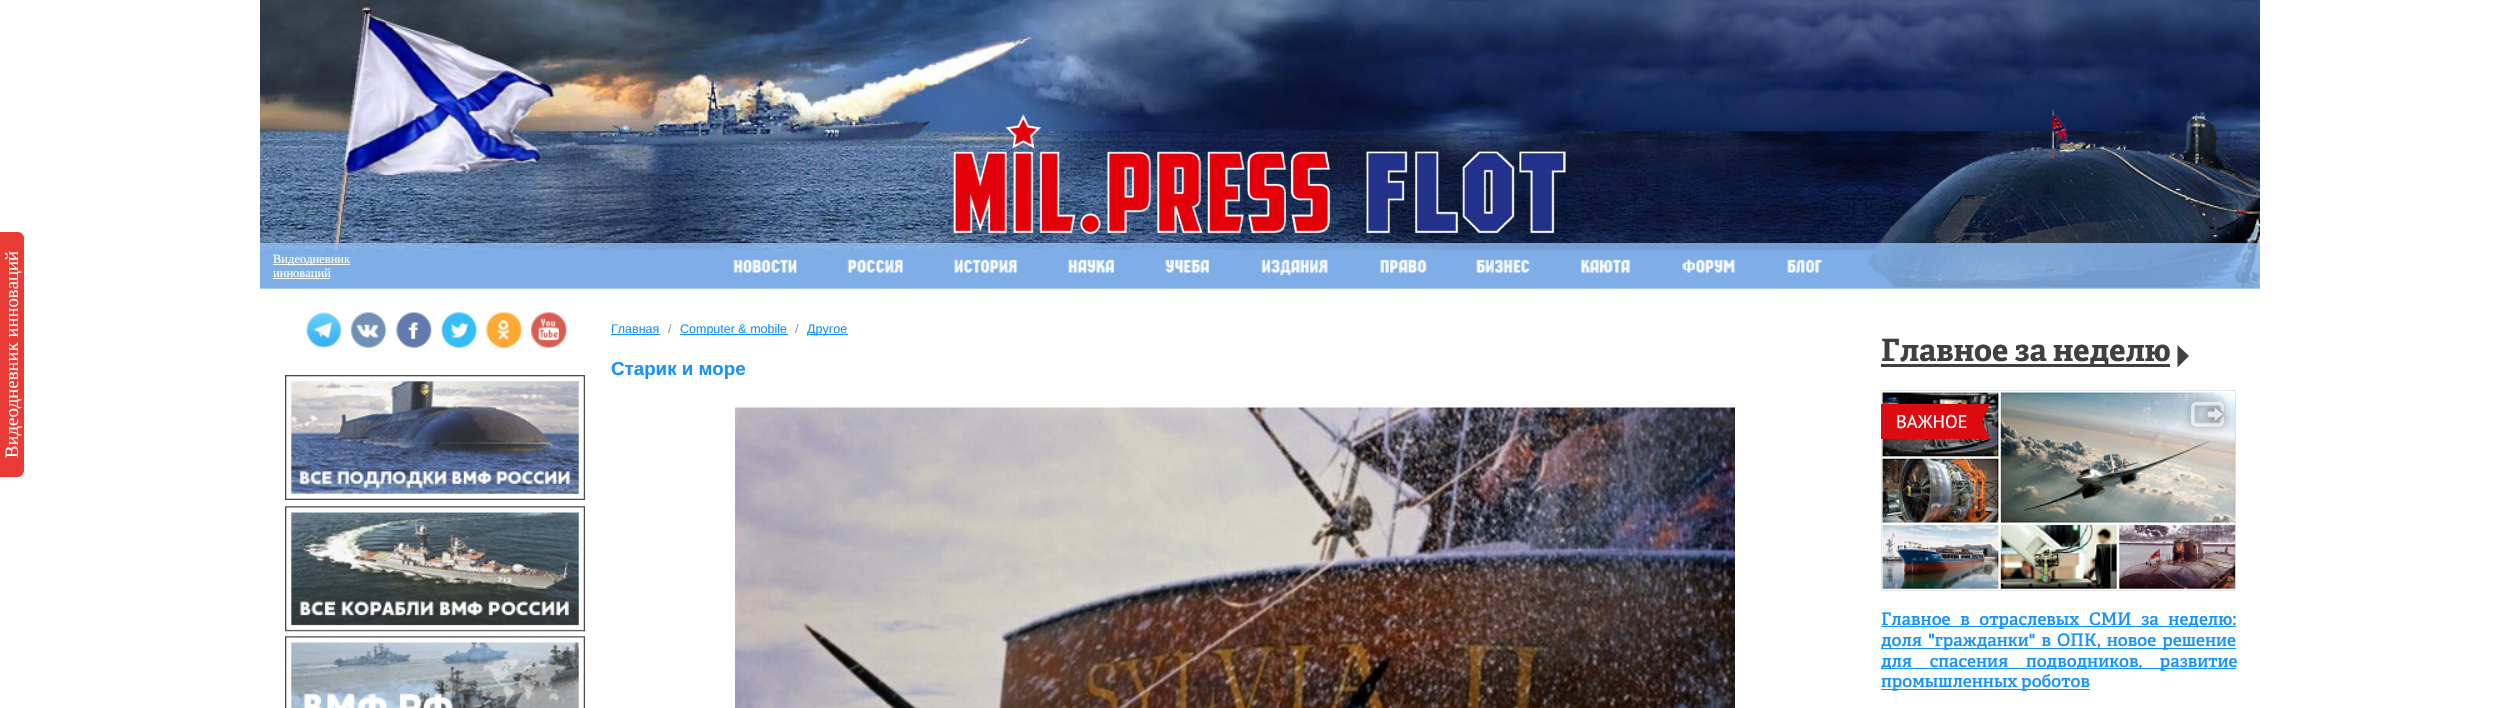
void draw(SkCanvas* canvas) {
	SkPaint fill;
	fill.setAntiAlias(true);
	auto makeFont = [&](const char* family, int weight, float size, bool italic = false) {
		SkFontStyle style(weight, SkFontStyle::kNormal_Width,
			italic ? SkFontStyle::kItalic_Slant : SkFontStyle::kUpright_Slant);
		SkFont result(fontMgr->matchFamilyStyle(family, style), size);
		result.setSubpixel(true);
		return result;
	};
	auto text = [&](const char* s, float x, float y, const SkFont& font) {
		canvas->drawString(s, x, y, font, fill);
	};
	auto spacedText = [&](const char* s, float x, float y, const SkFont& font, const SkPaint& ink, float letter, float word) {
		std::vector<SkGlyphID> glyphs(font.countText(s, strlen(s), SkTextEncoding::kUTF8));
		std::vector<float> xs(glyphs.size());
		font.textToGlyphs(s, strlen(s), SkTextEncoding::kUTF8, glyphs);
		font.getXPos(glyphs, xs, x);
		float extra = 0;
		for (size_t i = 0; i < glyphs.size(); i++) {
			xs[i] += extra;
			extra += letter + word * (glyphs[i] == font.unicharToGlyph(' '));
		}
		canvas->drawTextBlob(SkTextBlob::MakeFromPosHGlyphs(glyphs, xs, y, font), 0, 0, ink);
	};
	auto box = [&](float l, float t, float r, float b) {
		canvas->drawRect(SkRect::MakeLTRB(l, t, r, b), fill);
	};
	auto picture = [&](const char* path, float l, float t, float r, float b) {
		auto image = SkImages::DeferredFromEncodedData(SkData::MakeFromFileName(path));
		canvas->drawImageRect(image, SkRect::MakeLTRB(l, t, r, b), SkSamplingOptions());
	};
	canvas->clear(0xFFFFFFFF);
	fill.setColor(0xFFE83B35);
	canvas->drawPath(SkPathBuilder().moveTo(0, 477).lineTo(0, 232).lineTo(18, 232).cubicTo(21, 232, 24, 235, 24, 238).lineTo(24, 470).cubicTo(24, 474, 21, 477, 18, 477).close().detach(), fill);
	fill.setColor(0xFF4169A6);
	box(260, 250, 2260, 288);
	picture("image0.png", 260, 0, 2260, 250);
	picture("image1.png", 1867, 109, 2260, 288);
	picture("image2.png", 953, 114, 1566, 234);
	fill.setColor(0xCC8EBEF8);
	box(260, 243, 2260, 289);
	fill.setColor(0xFFFFFFFF);
	box(273, 264, 350, 265);
	box(273, 278, 330, 279);
	picture("image3.png", 733, 259, 797, 273);
	picture("image4.png", 847, 259, 903, 273);
	picture("image5.png", 953, 259, 1018, 273);
	picture("image6.png", 1068, 259, 1114, 273);
	picture("image7.png", 1165, 259, 1209, 273);
	picture("image8.png", 1261, 259, 1328, 276);
	picture("image9.png", 1380, 259, 1427, 273);
	picture("image10.png", 1476, 259, 1530, 273);
	picture("image11.png", 1581, 259, 1631, 273);
	picture("image12.png", 1682, 259, 1736, 273);
	picture("image13.png", 1787, 259, 1823, 273);
	picture("image14.png", 306, 312, 342, 348);
	picture("image15.png", 351, 312, 387, 348);
	picture("image16.png", 396, 312, 432, 348);
	picture("image17.png", 441, 312, 477, 348);
	picture("image18.png", 486, 312, 522, 348);
	picture("image19.png", 531, 312, 567, 348);
	picture("image20.png", 285, 375, 585, 500);
	picture("image21.png", 285, 506, 585, 632);
	picture("image22.png", 285, 636, 585, 708);
	fill.setColor(0xFF1492FF);
	box(611, 334, 660, 335);
	box(680, 334, 788, 335);
	box(808, 334, 848, 335);
	picture("image23.png", 735, 407, 1735, 708);
	fill.setColor(0xFF404040);
	box(1881, 364, 2170, 367);
	canvas->drawPath(SkPathBuilder().moveTo(2177.5f, 367.5f).lineTo(2177.5f, 345).lineTo(2189, 356).close().detach(), fill);
	picture("image24.png", 1881, 390, 2236, 591);
	fill.setStyle(SkPaint::kStroke_Style);
	fill.setStrokeWidth(1);
	fill.setColor(0x1A000000);
	canvas->drawRect(SkRect::MakeLTRB(1881.5f, 390.5f, 2235.5f, 590.5f), fill);
	fill.setStyle(SkPaint::kFill_Style);
	fill.setColor(0xFFDB0B11);
	box(1881, 404, 1981, 439);
	canvas->save();
	canvas->clipRect(SkRect::MakeLTRB(1981, 404, 1990, 421));
	canvas->drawPath(SkPathBuilder().moveTo(1972.5f, 404).lineTo(1990, 404).lineTo(1981, 424).close().detach(), fill);
	canvas->restore();
	canvas->save();
	canvas->clipRect(SkRect::MakeLTRB(1981, 421, 1990, 439));
	canvas->drawPath(SkPathBuilder().moveTo(1990, 439).lineTo(1972.5f, 439).lineTo(1981, 419).close().detach(), fill);
	canvas->restore();
	picture("image25.png", 2185, 395, 2230, 433);
	fill.setColor(0xFF1492FF);
	box(1881, 626, 2236, 627);
	box(1881, 648, 2236, 649);
	box(1881, 668, 2236, 669);
	box(1881, 689, 2090, 690);
	auto font1 = makeFont("Liberation Serif", 400, 18.75f);
	fill.setColor(0xFFFFFFFF);
	canvas->save();
	canvas->rotate(-90, 18, 458);
	text("Видеодневник инноваций", 18, 458, font1);
	canvas->restore();
	auto font2 = makeFont("Liberation Serif", 400, 12.5f);
	text("Видеодневник", 273, 263, font2);
	text("инноваций", 273, 277, font2);
	auto font3 = makeFont("Liberation Sans", 400, 12.5f);
	fill.setColor(0xFF1492FF);
	text("Главная", 611, 333, font3);
	fill.setColor(0xFF999999);
	text("/", 668, 333, font3);
	fill.setColor(0xFF1492FF);
	text("Computer & mobile", 680, 333, font3);
	fill.setColor(0xFF999999);
	text("/", 795, 333, font3);
	fill.setColor(0xFF1492FF);
	text("Другое", 807, 333, font3);
	auto font4 = makeFont("Liberation Sans", 700, 18.75f);
	text("Старик и море", 611, 375, font4);
	auto font5 = makeFont("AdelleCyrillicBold", 700, 30.9f);
	fill.setColor(0xFF404040);
	text("Главное за неделю", 1881, 361, font5);
	auto font6 = makeFont("PT Sans", 400, 18.5f);
	fill.setColor(0xFFFFFFFF);
	text("ВАЖНОЕ", 1896, 428, font6);
	auto font7 = makeFont("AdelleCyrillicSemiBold", 600, 17.25f);
	fill.setColor(0xFF1492FF);
	spacedText("Главное в отраслевых СМИ за неделю:", 1881, 625, font7, fill, 0, 6);
	spacedText("доля \"гражданки\" в ОПК, новое решение", 1881, 646, font7, fill, 0, 2.5f);
	spacedText("для спасения подводников, развитие", 1881, 667, font7, fill, 0, 14);
	text("промышленных роботов", 1881, 687, font7);
}
